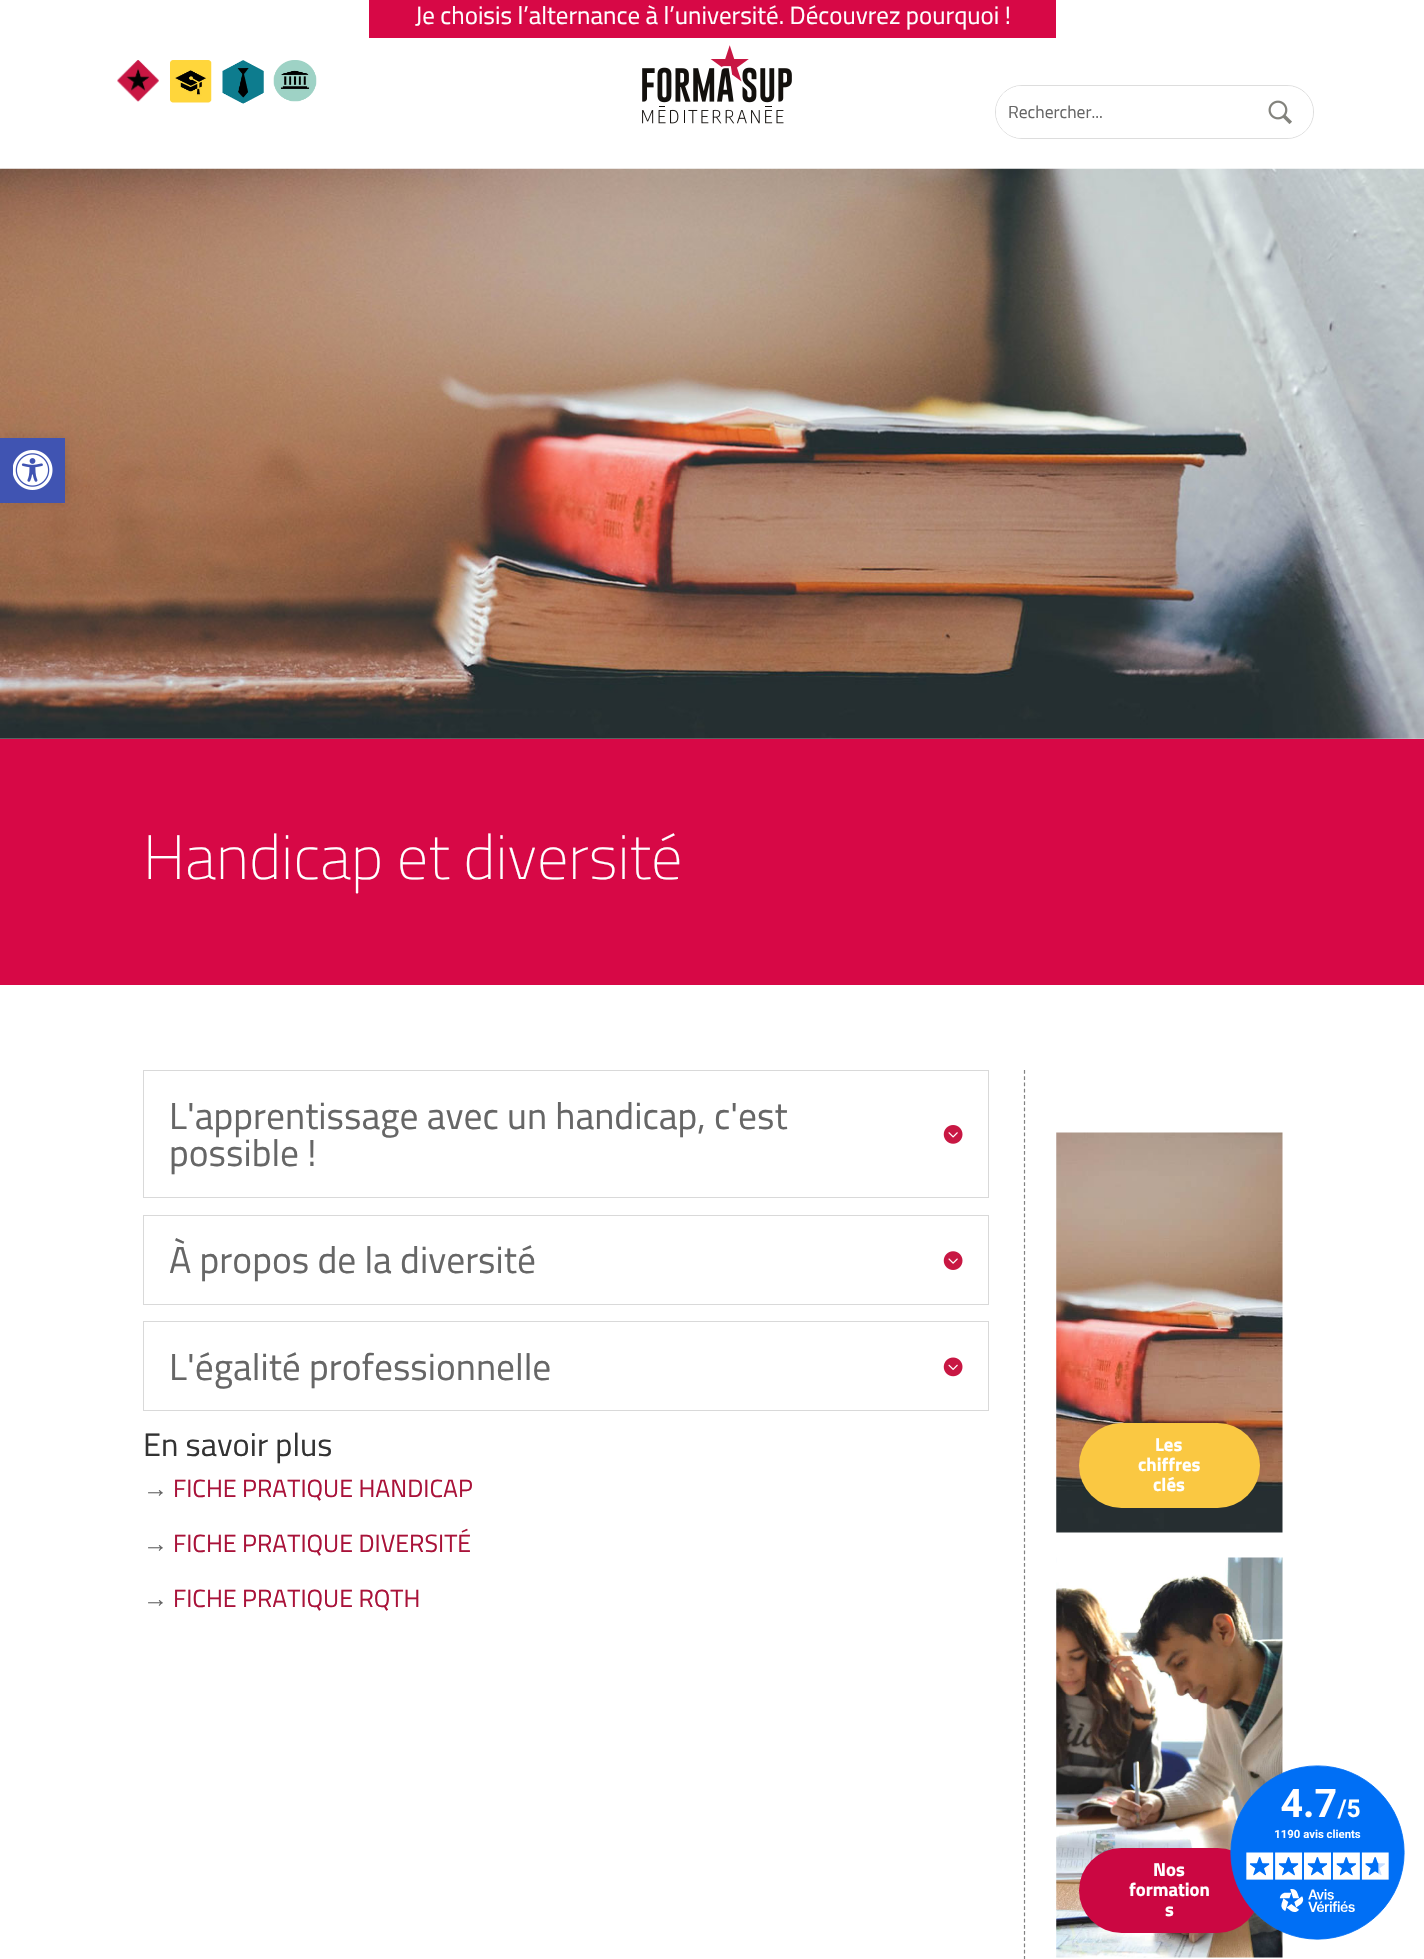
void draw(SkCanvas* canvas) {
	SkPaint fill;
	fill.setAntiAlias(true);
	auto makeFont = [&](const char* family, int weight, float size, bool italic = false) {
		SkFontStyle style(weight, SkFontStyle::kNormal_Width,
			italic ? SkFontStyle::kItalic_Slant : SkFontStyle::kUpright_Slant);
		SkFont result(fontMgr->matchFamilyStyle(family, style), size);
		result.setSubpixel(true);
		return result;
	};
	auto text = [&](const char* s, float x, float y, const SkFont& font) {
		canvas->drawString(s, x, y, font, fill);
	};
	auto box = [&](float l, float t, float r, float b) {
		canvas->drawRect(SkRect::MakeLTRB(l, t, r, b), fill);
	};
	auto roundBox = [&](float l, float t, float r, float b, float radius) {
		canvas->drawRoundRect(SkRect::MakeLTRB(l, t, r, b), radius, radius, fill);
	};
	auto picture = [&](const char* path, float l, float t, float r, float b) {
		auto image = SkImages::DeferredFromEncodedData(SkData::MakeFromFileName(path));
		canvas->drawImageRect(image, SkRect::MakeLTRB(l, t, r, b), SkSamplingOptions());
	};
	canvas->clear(0xFFFFFFFF);
	picture("image7.png", 0, 168, 1424, 739);
	fill.setColor(0x1A000000);
	fill.setMaskFilter(SkMaskFilter::MakeBlur(kNormal_SkBlurStyle, 6));
	canvas->drawRect(SkRect::MakeLTRB(0, 438, 65, 503), fill);
	fill.setMaskFilter(nullptr);
	fill.setColor(0xFF4054B2);
	box(0, 438, 65, 503);
	picture("image0.png", 13, 450, 53, 490);
	fill.setColor(0xFFD70846);
	box(369, 0, 1056, 38);
	picture("image1.png", 642, 45, 792, 124);
	picture("image2.png", 117, 60, 159, 102);
	picture("image3.png", 170, 60, 212, 103);
	picture("image4.png", 222, 60, 264, 104);
	picture("image5.png", 273, 60, 317, 102);
	fill.setStyle(SkPaint::kStroke_Style);
	fill.setStrokeWidth(1);
	fill.setColor(0xFFDDDDDD);
	canvas->drawRoundRect(SkRect::MakeLTRB(995.5f, 85.5f, 1313.5f, 138.5f), 26.5f, 26.5f, fill);
	fill.setStyle(SkPaint::kFill_Style);
	fill.setColor(0xFFFFFFFF);
	roundBox(996, 86, 1313, 138, 26);
	roundBox(996, 86, 1188, 138, 26);
	picture("image6.png", 1268, 100, 1292, 124);
	fill.setColor(0xFFD70846);
	box(0, 739, 1424, 985);
	fill.setStyle(SkPaint::kStroke_Style);
	fill.setColor(0xFFD9D9D9);
	canvas->drawRect(SkRect::MakeLTRB(143.5f, 1070.5f, 988.5f, 1197.5f), fill);
	picture("image8.png", 943, 1125, 963, 1144);
	canvas->drawRect(SkRect::MakeLTRB(143.5f, 1215.5f, 988.5f, 1304.5f), fill);
	picture("image9.png", 943, 1251, 963, 1270);
	canvas->drawRect(SkRect::MakeLTRB(143.5f, 1321.5f, 988.5f, 1410.5f), fill);
	picture("image10.png", 943, 1357, 963, 1377);
	fill.setStrokeWidth(1.2f);
	fill.setColor(0xFF818181);
	fill.setPathEffect(SkDashPathEffect::Make({{3.75f, 2.49f}}, 0));
	canvas->drawPath(SkPathBuilder().moveTo(1024.5f, 1070).lineTo(1024.5f, 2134).detach(), fill);
	fill.setPathEffect(nullptr);
	picture("image11.png", 1056, 1132, 1283, 1533);
	fill.setStyle(SkPaint::kFill_Style);
	fill.setColor(0xFFFAC842);
	roundBox(1079, 1423, 1260, 1508, 42.5f);
	picture("image12.png", 1056, 1557, 1283, 1958);
	fill.setColor(0xFFCB0742);
	roundBox(1079, 1848, 1260, 1933, 42.5f);
	picture("image13.png", 1230, 1765, 1405, 1940);
	auto font1 = makeFont("Titillium Web", 400, 25);
	fill.setColor(0xFFFFFFFF);
	text("Je choisis l’alternance à l’université. Découvrez pourquoi !", 415, 24, font1);
	auto font2 = makeFont("Titillium Web", 400, 17.5f);
	fill.setColor(0xFF666666);
	text("Rechercher...", 1008, 118, font2);
	auto font3 = makeFont("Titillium", 100, 62.5f);
	fill.setColor(0xFFFFFFFF);
	text("Handicap et diversité", 143, 879, font3);
	auto font4 = makeFont("Titillium Web", 400, 37.5f);
	fill.setColor(0xFF666666);
	text("L'apprentissage avec un handicap, c'est", 169, 1129, font4);
	text("possible !", 169, 1166, font4);
	text("À propos de la diversité", 169, 1273, font4);
	text("L'égalité professionnelle", 169, 1380, font4);
	auto font5 = makeFont("Titillium Web", 400, 32.5f);
	fill.setColor(0xFF333333);
	text("En savoir plus", 143, 1456, font5);
	auto font6 = makeFont("Liberation Sans", 400, 25);
	fill.setColor(0xFF666666);
	text("→", 143, 1497, font6);
	fill.setColor(0xFFA91239);
	text("FICHE PRATIQUE HANDICAP", 173, 1497, font1);
	fill.setColor(0xFF666666);
	text("→", 143, 1552, font6);
	fill.setColor(0xFFA91239);
	text("FICHE PRATIQUE DIVERSITÉ", 173, 1552, font1);
	fill.setColor(0xFF666666);
	text("→", 143, 1607, font6);
	fill.setColor(0xFFA91239);
	text("FICHE PRATIQUE RQTH", 173, 1607, font1);
	auto font7 = makeFont("Titillium Web", 700, 18.75f);
	fill.setColor(0xFFFFFFFF);
	text("Les", 1155, 1451, font7);
	text("chiffres", 1138, 1471, font7);
	text("clés", 1153, 1491, font7);
	text("Nos", 1153, 1876, font7);
	text("formation", 1129, 1896, font7);
	text("s", 1165, 1916, font7);
}
